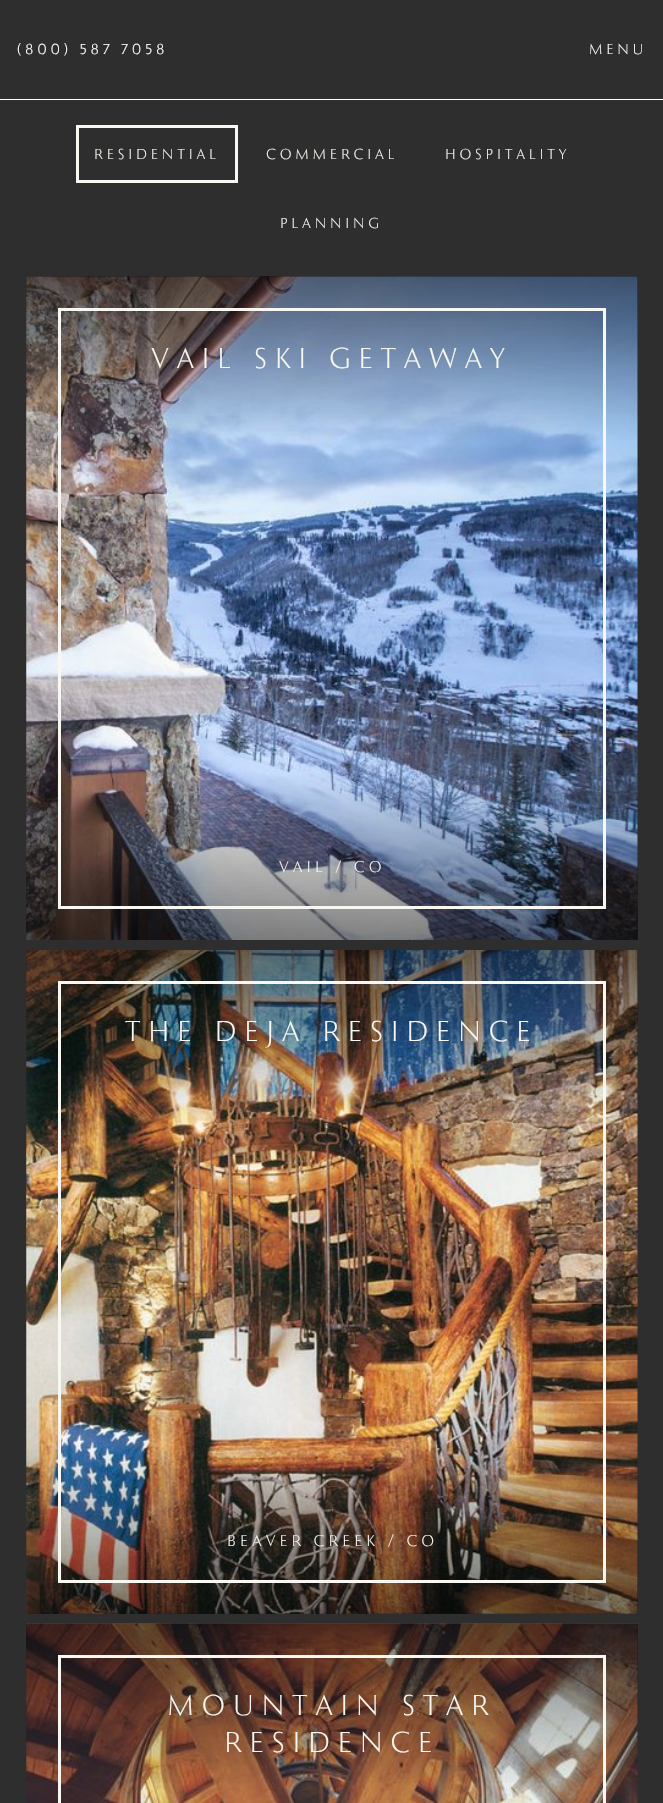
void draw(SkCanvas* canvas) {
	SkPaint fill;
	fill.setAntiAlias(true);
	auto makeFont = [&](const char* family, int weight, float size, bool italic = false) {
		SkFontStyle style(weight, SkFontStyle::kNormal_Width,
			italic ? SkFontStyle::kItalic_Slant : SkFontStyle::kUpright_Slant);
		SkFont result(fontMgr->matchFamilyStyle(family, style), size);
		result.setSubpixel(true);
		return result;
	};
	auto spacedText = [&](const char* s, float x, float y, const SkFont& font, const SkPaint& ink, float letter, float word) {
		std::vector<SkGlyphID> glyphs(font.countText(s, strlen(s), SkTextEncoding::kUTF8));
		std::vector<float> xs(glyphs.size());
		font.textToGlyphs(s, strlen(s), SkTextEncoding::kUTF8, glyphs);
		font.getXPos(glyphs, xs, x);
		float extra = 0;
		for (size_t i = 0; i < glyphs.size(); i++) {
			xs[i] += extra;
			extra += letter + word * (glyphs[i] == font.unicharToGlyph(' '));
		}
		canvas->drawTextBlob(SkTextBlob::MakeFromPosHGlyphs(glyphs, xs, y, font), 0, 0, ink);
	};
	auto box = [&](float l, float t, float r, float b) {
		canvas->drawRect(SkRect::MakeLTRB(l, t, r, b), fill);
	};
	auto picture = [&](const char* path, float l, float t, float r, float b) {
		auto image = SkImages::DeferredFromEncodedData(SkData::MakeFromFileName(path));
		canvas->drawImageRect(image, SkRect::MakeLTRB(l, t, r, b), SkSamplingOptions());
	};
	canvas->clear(0xFF2E2E2E);
	fill.setColor(0xFFFFFFFF);
	box(0, 99, 663, 100);
	fill.setStyle(SkPaint::kStroke_Style);
	fill.setStrokeWidth(3);
	fill.setColor(0xFFF8F7F1);
	canvas->drawRect(SkRect::MakeLTRB(77.5f, 126.5f, 236.5f, 181.5f), fill);
	picture("image0.png", 26, 276, 638, 940);
	fill.setStyle(SkPaint::kFill_Style);
	{
		const SkColor colors[] = {0x80000000, 0x00000000, 0x00000000, 0x80000000};
		const float stops[] = {0, 0.25f, 0.75f, 1};
		const SkPoint ends[] = {{332, 276}, {332, 940}};
		fill.setShader(SkGradientShader::MakeLinear(ends, colors, stops, 4, SkTileMode::kClamp));
		fill.setAlpha(255);
	}
	box(26, 276, 638, 940);
	fill.setStyle(SkPaint::kStroke_Style);
	fill.setShader(nullptr);
	fill.setColor(0xFFF8F7F1);
	canvas->drawRect(SkRect::MakeLTRB(59.5f, 309.5f, 604.5f, 907.5f), fill);
	picture("image1.png", 26, 950, 638, 1614);
	fill.setStyle(SkPaint::kFill_Style);
	{
		const SkColor colors[] = {0x80000000, 0x00000000, 0x00000000, 0x80000000};
		const float stops[] = {0, 0.25f, 0.75f, 1};
		const SkPoint ends[] = {{332, 950}, {332, 1614}};
		fill.setShader(SkGradientShader::MakeLinear(ends, colors, stops, 4, SkTileMode::kClamp));
		fill.setAlpha(255);
	}
	box(26, 950, 638, 1614);
	fill.setStyle(SkPaint::kStroke_Style);
	fill.setShader(nullptr);
	fill.setColor(0xFFF8F7F1);
	canvas->drawRect(SkRect::MakeLTRB(59.5f, 982.5f, 604.5f, 1581.5f), fill);
	picture("image2.png", 26, 1623, 638, 1803);
	fill.setStyle(SkPaint::kFill_Style);
	{
		const SkColor colors[] = {0x80000000, 0x00000000, 0x00000000, 0x80000000};
		const float stops[] = {0, 0.25f, 0.75f, 1};
		const SkPoint ends[] = {{332, 1624}, {332, 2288}};
		fill.setShader(SkGradientShader::MakeLinear(ends, colors, stops, 4, SkTileMode::kClamp));
		fill.setAlpha(255);
	}
	box(26, 1624, 638, 1783);
	fill.setStyle(SkPaint::kStroke_Style);
	fill.setShader(nullptr);
	fill.setColor(0xFFF8F7F1);
	canvas->drawRect(SkRect::MakeLTRB(59.5f, 1656.5f, 604.5f, 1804.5f), fill);
	auto font1 = makeFont("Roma", 300, 15);
	fill.setStyle(SkPaint::kFill_Style);
	fill.setColor(0xFFFFFFFF);
	spacedText("(800) 587 7058", 17, 54, font1, fill, 3.75f, 0);
	spacedText("MENU", 589, 54, font1, fill, 3.75f, 0);
	fill.setColor(0xFFF8F7F1);
	spacedText("RESIDENTIAL", 94, 159, font1, fill, 3.75f, 0);
	spacedText("COMMERCIAL", 266, 159, font1, fill, 3.75f, 0);
	spacedText("HOSPITALITY", 445, 159, font1, fill, 3.75f, 0);
	spacedText("PLANNING", 280, 228, font1, fill, 3.75f, 0);
	auto font2 = makeFont("Roma", 300, 30);
	spacedText("VAIL SKI GETAWAY", 151, 368, font2, fill, 7.5f, 0);
	auto font3 = makeFont("Roma", 300, 16.25f);
	spacedText("VAIL / CO", 279, 872, font3, fill, 4.1f, 0);
	spacedText("THE DEJA RESIDENCE", 125, 1041, font2, fill, 7.5f, 0);
	spacedText("BEAVER CREEK / CO", 227, 1546, font3, fill, 4.1f, 0);
	spacedText("MOUNTAIN STAR", 167, 1715, font2, fill, 7.5f, 0);
	spacedText("RESIDENCE", 224, 1752, font2, fill, 7.5f, 0);
}
